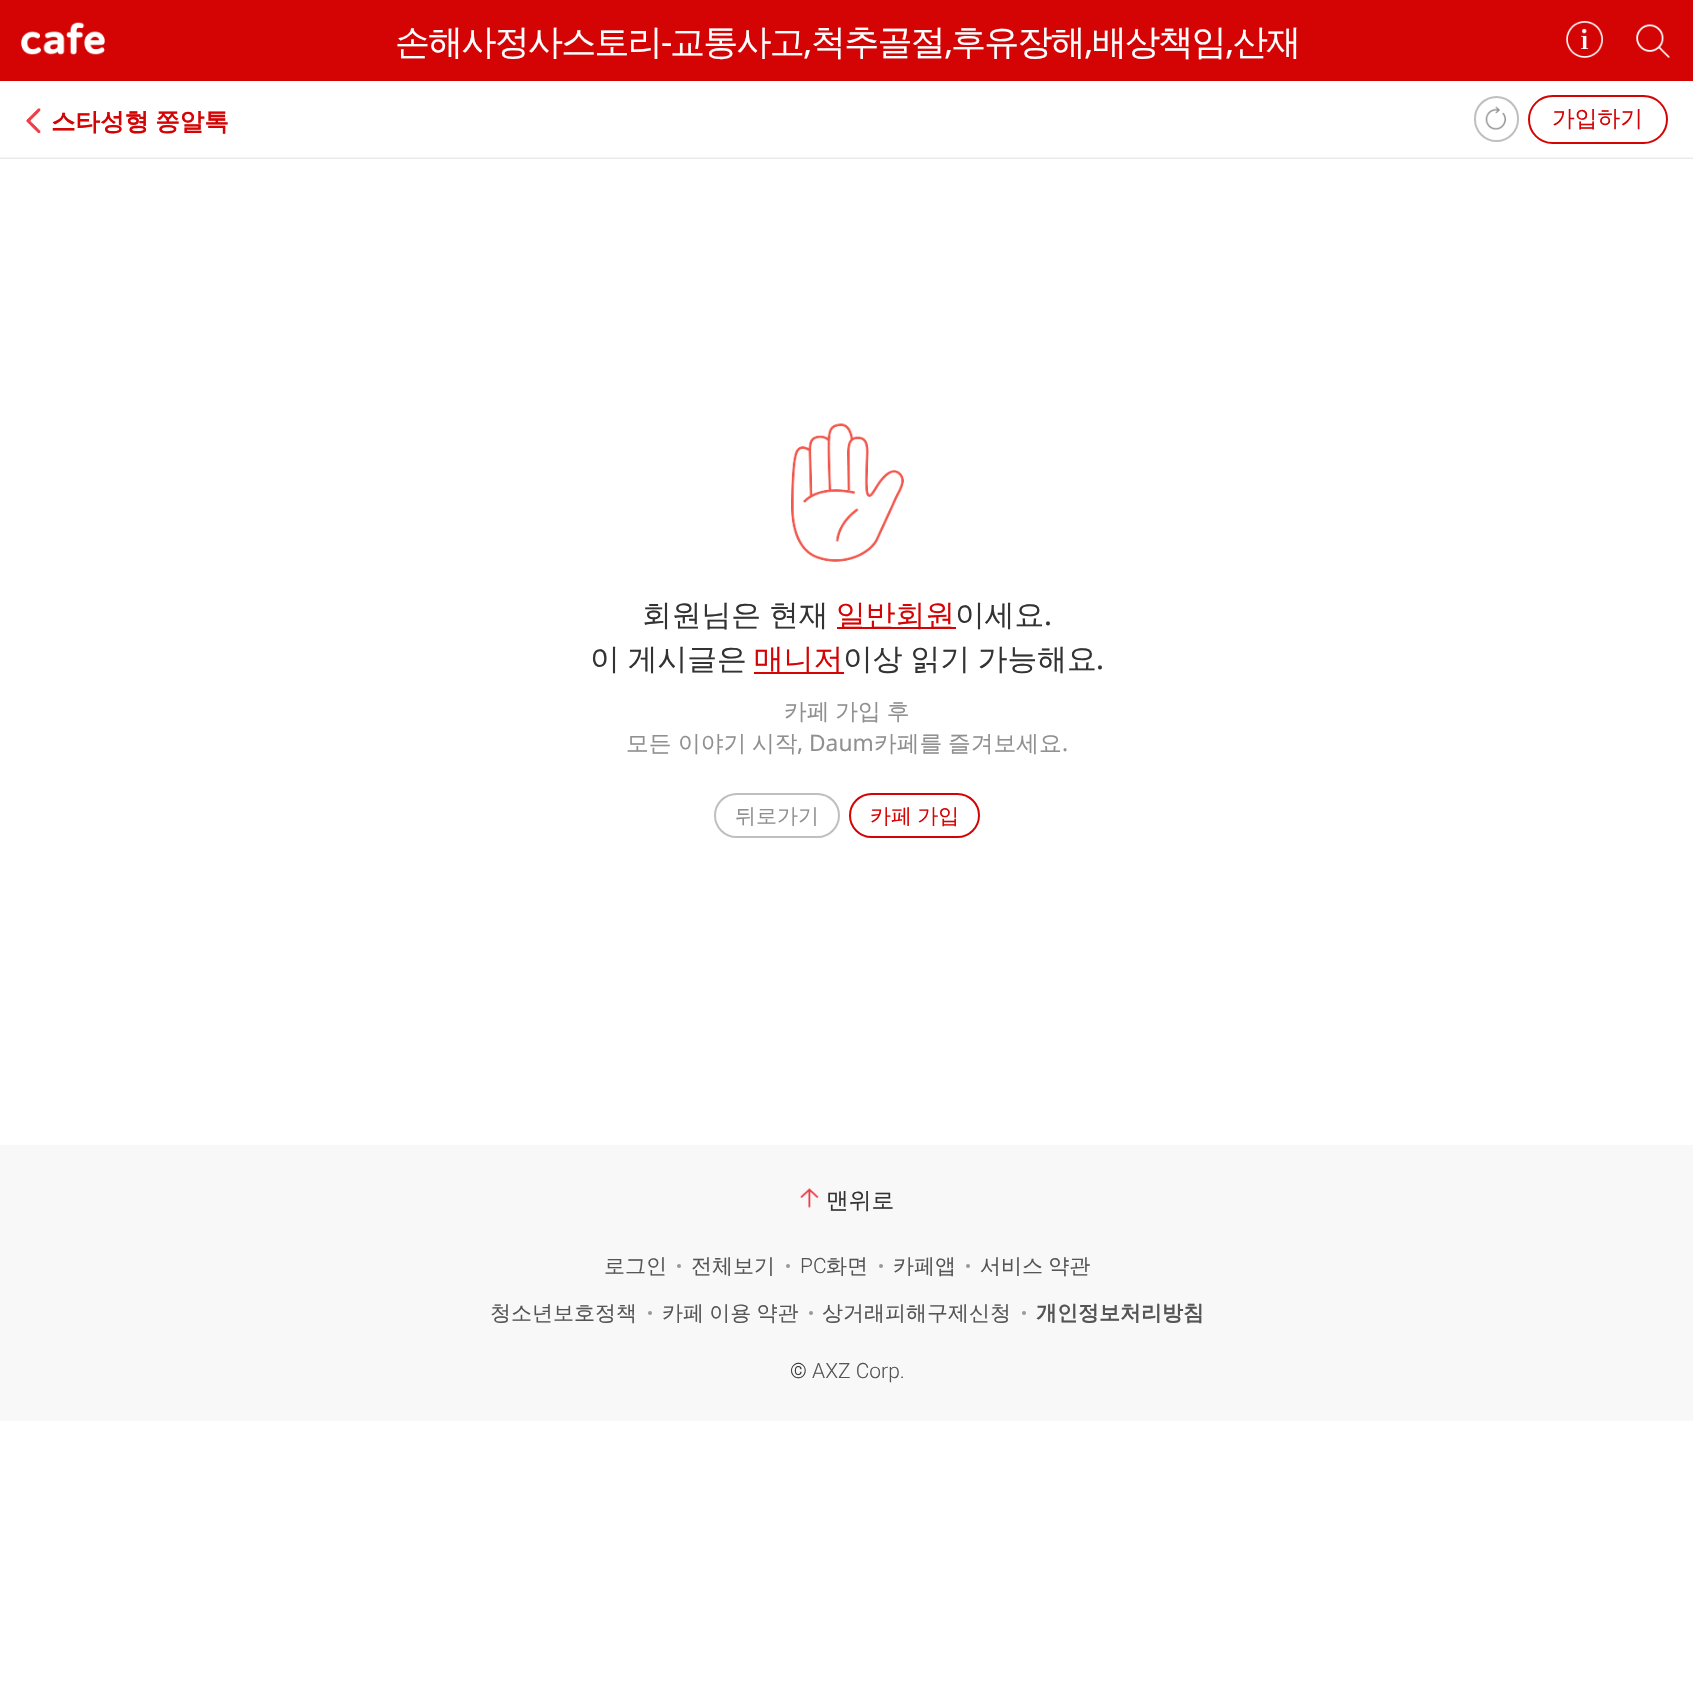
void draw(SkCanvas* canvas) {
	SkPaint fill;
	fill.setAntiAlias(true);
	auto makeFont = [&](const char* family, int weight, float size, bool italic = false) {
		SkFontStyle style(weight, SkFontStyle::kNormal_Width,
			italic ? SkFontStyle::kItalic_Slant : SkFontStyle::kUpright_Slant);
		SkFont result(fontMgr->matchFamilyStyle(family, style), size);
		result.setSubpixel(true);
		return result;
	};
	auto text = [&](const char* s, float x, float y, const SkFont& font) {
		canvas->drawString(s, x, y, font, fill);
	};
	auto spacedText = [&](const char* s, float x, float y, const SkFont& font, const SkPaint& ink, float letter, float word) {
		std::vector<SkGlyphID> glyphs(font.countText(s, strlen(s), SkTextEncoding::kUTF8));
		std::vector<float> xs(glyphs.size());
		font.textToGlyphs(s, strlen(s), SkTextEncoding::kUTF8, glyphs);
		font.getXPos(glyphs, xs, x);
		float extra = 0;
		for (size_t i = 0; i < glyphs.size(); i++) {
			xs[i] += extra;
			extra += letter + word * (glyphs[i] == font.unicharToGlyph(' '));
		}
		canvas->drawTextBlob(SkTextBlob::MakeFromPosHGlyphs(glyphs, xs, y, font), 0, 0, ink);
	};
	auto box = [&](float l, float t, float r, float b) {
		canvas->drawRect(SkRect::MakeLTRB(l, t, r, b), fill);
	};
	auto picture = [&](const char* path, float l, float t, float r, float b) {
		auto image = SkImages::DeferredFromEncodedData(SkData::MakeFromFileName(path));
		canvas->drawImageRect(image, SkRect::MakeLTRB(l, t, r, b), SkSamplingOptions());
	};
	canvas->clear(0xFFFFFFFF);
	fill.setColor(0xFFD40304);
	box(0, 0, 1693, 81);
	picture("image0.png", 21, 22, 105, 55);
	picture("image1.png", 1566, 21, 1603, 58);
	picture("image2.png", 1636, 24, 1670, 58);
	picture("image3.png", 0, 157, 1693, 159);
	picture("image4.png", 26, 108, 41, 133);
	fill.setStyle(SkPaint::kStroke_Style);
	fill.setStrokeWidth(2);
	fill.setColor(0xFFBFBFBF);
	canvas->drawRoundRect(SkRect::MakeLTRB(1475, 97, 1518, 141), 21.5f, 21.5f, fill);
	picture("image5.png", 1485, 106, 1506, 130);
	fill.setColor(0xFFD40304);
	canvas->drawRoundRect(SkRect::MakeLTRB(1529, 96, 1667, 143), 23.5f, 23.5f, fill);
	picture("image6.png", 791, 423, 904, 562);
	fill.setStyle(SkPaint::kFill_Style);
	box(837, 627, 956, 629);
	box(754, 672, 844, 674);
	fill.setStyle(SkPaint::kStroke_Style);
	fill.setColor(0xFFBFBFBF);
	canvas->drawRoundRect(SkRect::MakeLTRB(715, 794, 839, 837), 21.5f, 21.5f, fill);
	fill.setColor(0xFFD40304);
	canvas->drawRoundRect(SkRect::MakeLTRB(850, 794, 979, 837), 21.5f, 21.5f, fill);
	fill.setStyle(SkPaint::kFill_Style);
	fill.setColor(0xFFF8F8F8);
	box(0, 1145, 1693, 1421);
	picture("image7.png", 800, 1188, 819, 1208);
	fill.setColor(0xFF999999);
	canvas->drawCircle(679, 1266, 2, fill);
	canvas->drawCircle(788, 1266, 2, fill);
	canvas->drawCircle(881, 1266, 2, fill);
	canvas->drawCircle(968, 1266, 2, fill);
	canvas->drawCircle(650, 1313, 2, fill);
	canvas->drawCircle(811, 1313, 2, fill);
	canvas->drawCircle(1024, 1313, 2, fill);
	auto font1 = makeFont("WenQuanYi Zen Hei", 500, 35);
	fill.setColor(0xFFFFFFFF);
	spacedText("손해사정사스토리", 395, 54, font1, fill, -1.75f, 0);
	auto font2 = makeFont("Noto Sans", 400, 35);
	spacedText("-", 661, 54, font2, fill, -1.75f, 0);
	spacedText("교통사고", 670, 54, font1, fill, -1.75f, 0);
	spacedText("척추골절", 811, 54, font1, fill, -1.75f, 0);
	spacedText("후유장해", 951, 54, font1, fill, -1.75f, 0);
	spacedText("배상책임", 1092, 54, font1, fill, -1.75f, 0);
	spacedText("산재", 1233, 54, font1, fill, -1.75f, 0);
	spacedText(",", 803, 54, font2, fill, -1.75f, 0);
	spacedText(",", 944, 54, font2, fill, -1.75f, 0);
	spacedText(",", 1084, 54, font2, fill, -1.75f, 0);
	spacedText(",", 1225, 54, font2, fill, -1.75f, 0);
	auto font3 = makeFont("WenQuanYi Zen Hei", 700, 24.5f);
	fill.setColor(0xFFD40304);
	spacedText("스타성형 쫑알톡", 51, 130, font3, fill, 0, -1);
	auto font4 = makeFont("WenQuanYi Zen Hei", 500, 22.75f);
	text("가입하기", 1552, 126, font4);
	auto font5 = makeFont("WenQuanYi Zen Hei", 500, 29.75f);
	fill.setColor(0xFF333333);
	spacedText("회원님은 현재", 642, 625, font5, fill, 0, -1);
	fill.setColor(0xFFD40304);
	text("일반회원", 836, 625, font5);
	fill.setColor(0xFF333333);
	text("이세요", 955, 625, font5);
	auto font6 = makeFont("Noto Sans", 400, 29.75f);
	text(".", 1044, 625, font6);
	spacedText("이 게시글은", 590, 669, font5, fill, 0, -1);
	fill.setColor(0xFFD40304);
	text("매니저", 754, 669, font5);
	fill.setColor(0xFF333333);
	spacedText("이상 읽기 가능해요", 843, 669, font5, fill, 0, -1);
	text(".", 1096, 669, font6);
	fill.setColor(0xFF909090);
	spacedText("카페 가입 후", 784, 719, font4, fill, 0, -1);
	text("모든", 626, 751, font4);
	text("이야기", 678, 751, font4);
	text("시작", 752, 751, font4);
	auto font7 = makeFont("Noto Sans", 400, 22.75f);
	text(", Daum", 797, 751, font7);
	text("카페를", 874, 751, font4);
	text("즐겨보세요", 948, 751, font4);
	text(".", 1062, 751, font7);
	auto font8 = makeFont("WenQuanYi Zen Hei", 500, 21);
	text("뒤로가기", 735, 823, font8);
	fill.setColor(0xFFD40304);
	spacedText("카페 가입", 870, 823, font8, fill, 0, -1);
	fill.setColor(0xFF333333);
	text("맨위로", 826, 1208, font4);
	fill.setColor(0xFF555555);
	text("로그인", 604, 1273, font8);
	text("전체보기", 691, 1273, font8);
	auto font9 = makeFont("Roboto", 300, 21);
	text("PC", 800, 1273, font9);
	text("화면", 826, 1273, font8);
	text("카페앱", 893, 1273, font8);
	spacedText("서비스 약관", 980, 1273, font8, fill, 0, -1);
	text("청소년보호정책", 490, 1320, font8);
	spacedText("카페 이용 약관", 662, 1320, font8, fill, 0, -1);
	text("상거래피해구제신청", 822, 1320, font8);
	auto font10 = makeFont("WenQuanYi Zen Hei", 700, 21);
	text("개인정보처리방침", 1036, 1320, font10);
	fill.setColor(0xFF333333);
	text("©", 790, 1378, font9);
	fill.setColor(0xFF555555);
	text("AXZ Corp.", 812, 1378, font9);
}
